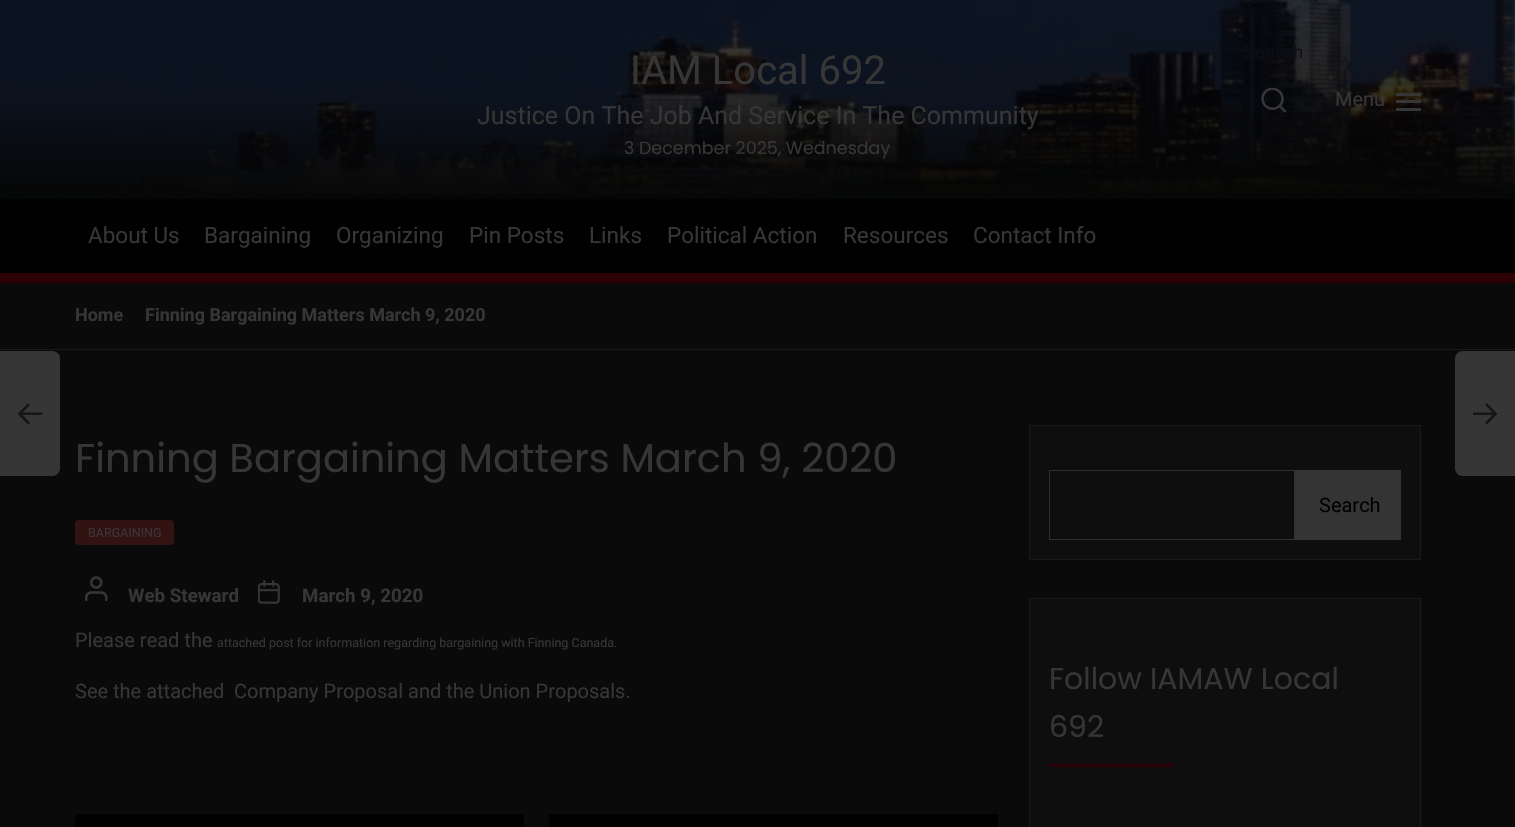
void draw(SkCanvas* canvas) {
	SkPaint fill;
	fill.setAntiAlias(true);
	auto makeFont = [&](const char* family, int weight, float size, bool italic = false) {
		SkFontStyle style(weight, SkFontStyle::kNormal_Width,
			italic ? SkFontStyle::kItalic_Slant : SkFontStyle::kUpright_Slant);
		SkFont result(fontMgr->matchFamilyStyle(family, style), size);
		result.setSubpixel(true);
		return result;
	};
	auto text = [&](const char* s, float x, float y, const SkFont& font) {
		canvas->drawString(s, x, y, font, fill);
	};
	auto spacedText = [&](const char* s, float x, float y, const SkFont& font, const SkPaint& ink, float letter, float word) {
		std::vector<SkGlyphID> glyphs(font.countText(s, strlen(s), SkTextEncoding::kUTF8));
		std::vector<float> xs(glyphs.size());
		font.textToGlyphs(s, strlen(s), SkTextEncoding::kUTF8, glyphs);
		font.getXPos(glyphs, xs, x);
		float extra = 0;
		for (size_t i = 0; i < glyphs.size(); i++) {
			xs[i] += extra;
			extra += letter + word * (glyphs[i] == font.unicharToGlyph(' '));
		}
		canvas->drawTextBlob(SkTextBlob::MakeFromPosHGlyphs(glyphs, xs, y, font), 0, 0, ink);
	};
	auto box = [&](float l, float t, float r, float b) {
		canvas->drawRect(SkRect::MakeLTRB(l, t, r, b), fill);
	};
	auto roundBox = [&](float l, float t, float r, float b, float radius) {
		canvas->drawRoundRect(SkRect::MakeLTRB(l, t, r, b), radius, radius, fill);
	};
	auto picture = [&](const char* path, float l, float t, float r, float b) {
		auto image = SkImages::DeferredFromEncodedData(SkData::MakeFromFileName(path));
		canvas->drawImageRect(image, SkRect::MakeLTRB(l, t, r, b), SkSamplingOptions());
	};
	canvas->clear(0xFF0A0A0A);
	fill.setColor(0xFF2E2D2D);
	box(0, 0, 1515, 198);
	picture("image0.png", 0, 0, 1515, 198);
	{
		const SkColor colors[] = {0xFF040505, 0x00040505};
		const float stops[] = {0, 0.5f};
		const SkPoint ends[] = {{758, 199}, {758, 0}};
		fill.setShader(SkGradientShader::MakeLinear(ends, colors, stops, 2, SkTileMode::kClamp));
		fill.setAlpha(255);
	}
	box(0, 105, 1515, 199);
	picture("image1.png", 1261, 88, 1286, 113);
	fill.setShader(nullptr);
	fill.setColor(0xFF363636);
	box(1396, 93, 1421, 96);
	box(1396, 100, 1421, 103);
	box(1396, 108, 1421, 111);
	fill.setColor(0xFF010101);
	box(0, 199, 1515, 273);
	fill.setColor(0xFF2C0106);
	box(0, 273, 1515, 283);
	fill.setColor(0xFF191919);
	box(0, 349, 1515, 350);
	fill.setColor(0xFF363636);
	canvas->drawPath(SkPathBuilder().moveTo(0, 351).lineTo(52, 351).cubicTo(56.5f, 351, 60, 354.5f, 60, 359).lineTo(60, 468).cubicTo(60, 472.5f, 56.5f, 476, 52, 476).lineTo(0, 476).close().detach(), fill);
	fill.setColor(0xFF161616);
	canvas->drawPath(SkPathBuilder().moveTo(22.5f, 412.5f).lineTo(30, 405).lineTo(28, 403).lineTo(17.5f, 414).lineTo(28, 424.5f).lineTo(30, 422.5f).lineTo(22.5f, 415).lineTo(42.5f, 415).lineTo(42.5f, 412.5f).close().detach(), fill);
	fill.setColor(0xFF363636);
	canvas->drawPath(SkPathBuilder().moveTo(1463, 351).lineTo(1515, 351).lineTo(1515, 476).lineTo(1463, 476).cubicTo(1458.5f, 476, 1455, 472.5f, 1455, 468).lineTo(1455, 359).cubicTo(1455, 354.5f, 1458.5f, 351, 1463, 351).close().detach(), fill);
	canvas->save();
	canvas->clipRect(SkRect::MakeLTRB(1473, 351, 1498, 476));
	fill.setColor(0xFF161616);
	canvas->drawPath(SkPathBuilder().moveTo(1492.5f, 412.5f).lineTo(1485, 405).lineTo(1487, 403).lineTo(1497.5f, 414).lineTo(1487, 424.5f).lineTo(1485, 422.5f).lineTo(1492.5f, 415).lineTo(1472.5f, 415).lineTo(1472.5f, 412.5f).close().detach(), fill);
	canvas->restore();
	fill.setColor(0xFF331212);
	roundBox(75, 520, 174, 545, 4);
	picture("image2.png", 85, 576, 108, 601);
	picture("image3.png", 258, 580, 280, 604);
	fill.setColor(0xFF010101);
	box(75, 814, 524, 827);
	box(549, 814, 998, 827);
	fill.setColor(0xFF0E0E0E);
	canvas->drawRect(SkRect::MakeLTRB(1029.5f, 425.5f, 1420.5f, 559.5f), fill);
	fill.setStyle(SkPaint::kStroke_Style);
	fill.setStrokeWidth(1);
	fill.setColor(0xFF1A1A1A);
	canvas->drawRect(SkRect::MakeLTRB(1029.5f, 425.5f, 1420.5f, 559.5f), fill);
	fill.setColor(0xFF303030);
	canvas->drawRect(SkRect::MakeLTRB(1049.5f, 470.5f, 1294.5f, 539.5f), fill);
	fill.setStyle(SkPaint::kFill_Style);
	fill.setColor(0xFF343434);
	box(1295, 470, 1401, 540);
	fill.setColor(0xFF0E0E0E);
	canvas->drawRect(SkRect::MakeLTRB(1029.5f, 598.5f, 1420.5f, 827.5f), fill);
	fill.setStyle(SkPaint::kStroke_Style);
	fill.setColor(0xFF1A1A1A);
	canvas->drawRect(SkRect::MakeLTRB(1029.5f, 598.5f, 1420.5f, 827.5f), fill);
	fill.setStyle(SkPaint::kFill_Style);
	fill.setColor(0xFF2C0106);
	box(1049, 764, 1174, 767);
	auto font1 = makeFont("Roboto", 400, 40);
	fill.setColor(0xFF363636);
	text("IAM Local 692", 630, 84, font1);
	auto font2 = makeFont("Roboto", 400, 25);
	text("Justice On The Job And Service In The Community", 477, 124, font2);
	auto font3 = makeFont("Poppins", 400, 17.5f);
	text("3 December 2025, Wednesday", 624, 154, font3);
	auto font4 = makeFont("Roboto", 400, 17.5f);
	fill.setColor(0xFF0C0E14);
	spacedText("Search", 1243, 58, font4, fill, 1.25f, 0);
	auto font5 = makeFont("Roboto", 400, 20);
	fill.setColor(0xFF363636);
	text("Menu", 1335, 106, font5);
	auto font6 = makeFont("Roboto", 400, 22.5f);
	text("About Us", 88, 243, font6);
	text("Bargaining", 204, 243, font6);
	text("Organizing", 336, 243, font6);
	text("Pin Posts", 469, 243, font6);
	text("Links", 589, 243, font6);
	text("Political Action", 667, 243, font6);
	text("Resources", 843, 243, font6);
	text("Contact Info", 973, 243, font6);
	auto font7 = makeFont("Roboto", 700, 18);
	text("Home", 75, 321, font7);
	text("Finning Bargaining Matters March 9, 2020", 145, 321, font7);
	auto font8 = makeFont("Poppins", 400, 40);
	text("Finning Bargaining Matters March 9, 2020", 75, 472, font8);
	auto font9 = makeFont("Roboto", 400, 12.5f);
	text("BARGAINING", 88, 537, font9);
	auto font10 = makeFont("Roboto", 700, 18.75f);
	text("Web Steward", 128, 602, font10);
	text("March 9, 2020", 302, 602, font10);
	text("Please read the", 75, 647, font5);
	text("attached post for information regarding bargaining with Finning Canada.", 217, 647, font9);
	text("See the attached", 75, 698, font5);
	text("Company Proposal and the Union Proposals.", 234, 698, font5);
	fill.setColor(0xFF010101);
	text("Search", 1319, 512, font5);
	auto font11 = makeFont("Poppins", 400, 30);
	fill.setColor(0xFF363636);
	text("Follow IAMAW Local", 1049, 689, font11);
	text("692", 1049, 737, font11);
}
